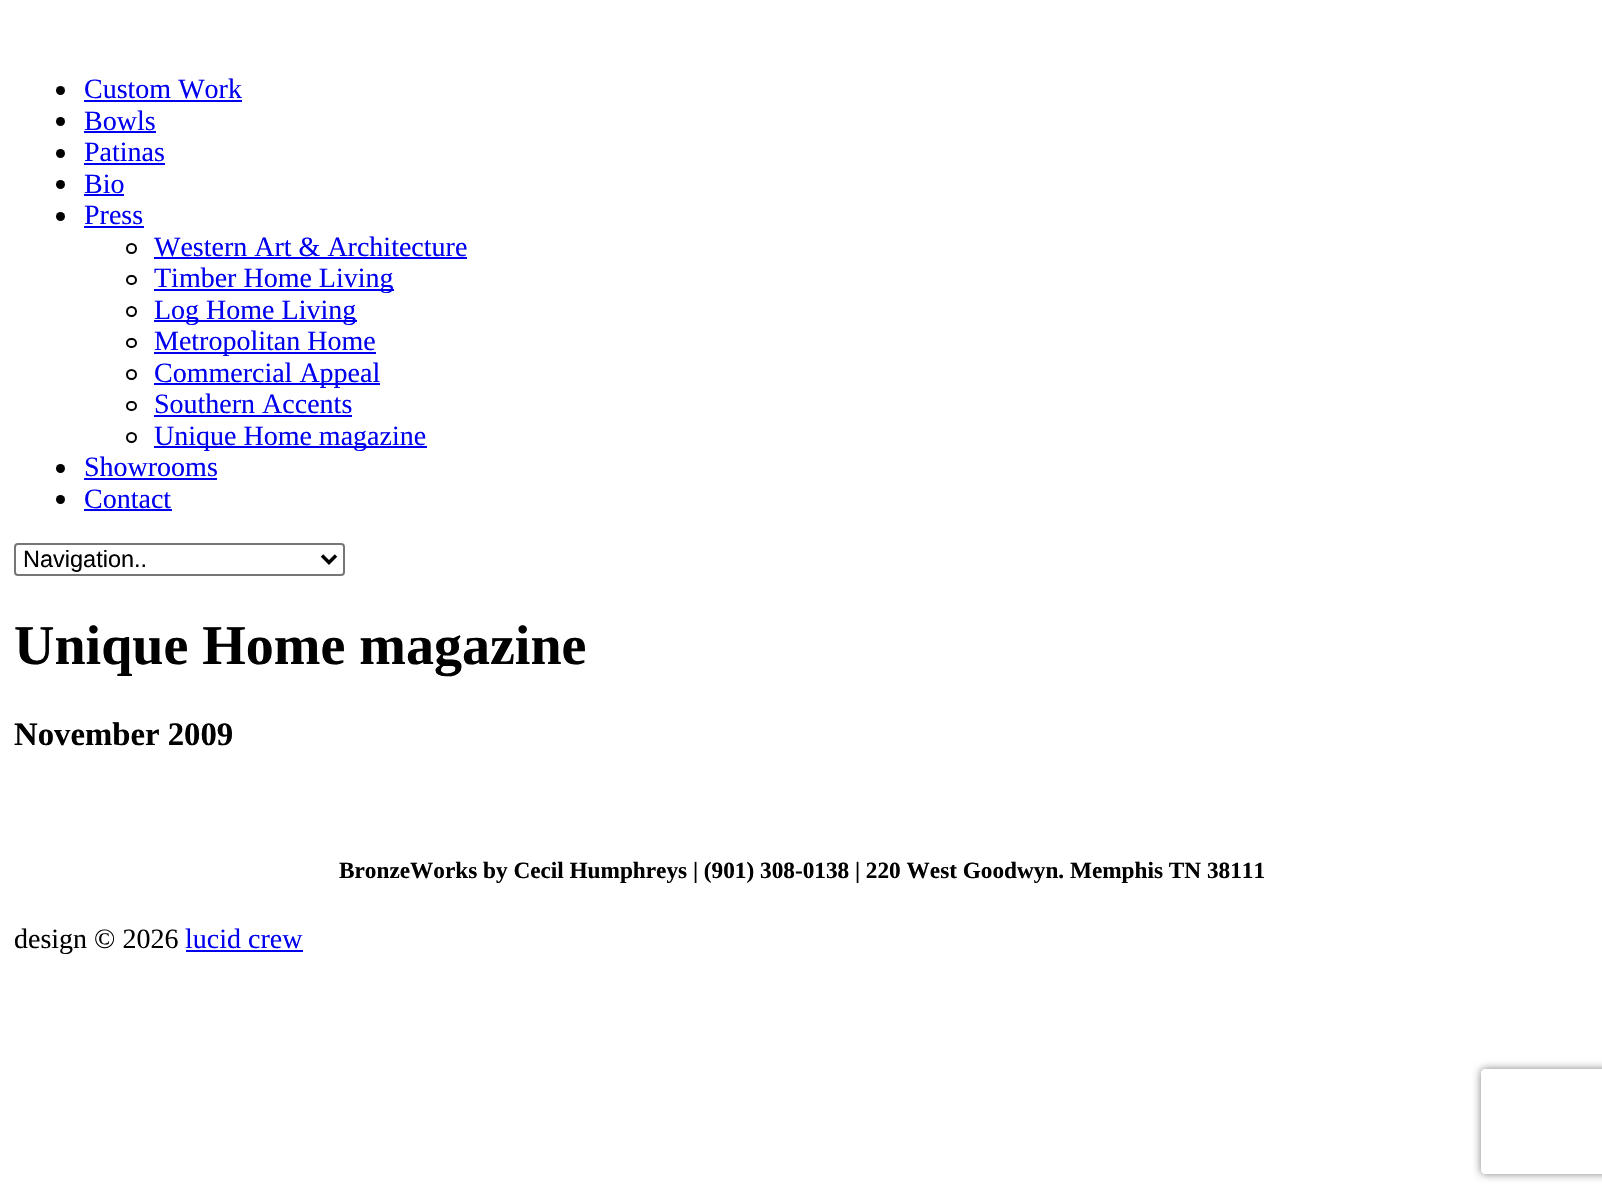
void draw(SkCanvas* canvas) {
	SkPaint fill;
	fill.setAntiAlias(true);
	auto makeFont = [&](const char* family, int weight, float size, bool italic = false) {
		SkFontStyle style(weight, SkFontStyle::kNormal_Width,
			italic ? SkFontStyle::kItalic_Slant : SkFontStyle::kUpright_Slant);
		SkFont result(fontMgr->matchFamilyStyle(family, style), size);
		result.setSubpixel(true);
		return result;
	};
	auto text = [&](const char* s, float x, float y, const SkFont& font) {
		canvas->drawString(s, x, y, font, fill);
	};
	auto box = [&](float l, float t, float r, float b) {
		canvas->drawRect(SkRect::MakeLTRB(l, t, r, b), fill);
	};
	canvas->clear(0xFFFFFFFF);
	fill.setColor(0xFF000000);
	canvas->drawCircle(60.5f, 90.5f, 4.5f, fill);
	fill.setColor(0xFF0000EE);
	box(84, 100, 242, 102);
	fill.setColor(0xFF000000);
	canvas->drawCircle(60.5f, 121.5f, 4.5f, fill);
	fill.setColor(0xFF0000EE);
	box(84, 131, 156, 133);
	fill.setColor(0xFF000000);
	canvas->drawCircle(60.5f, 153.5f, 4.5f, fill);
	fill.setColor(0xFF0000EE);
	box(84, 163, 165, 165);
	fill.setColor(0xFF000000);
	canvas->drawCircle(60.5f, 184.5f, 4.5f, fill);
	fill.setColor(0xFF0000EE);
	box(84, 194, 124, 196);
	fill.setColor(0xFF000000);
	canvas->drawCircle(60.5f, 216.5f, 4.5f, fill);
	fill.setColor(0xFF0000EE);
	box(84, 226, 144, 228);
	fill.setStyle(SkPaint::kStroke_Style);
	fill.setStrokeWidth(2);
	fill.setColor(0xFF000000);
	canvas->drawCircle(131.5f, 248.5f, 4.5f, fill);
	fill.setStyle(SkPaint::kFill_Style);
	fill.setColor(0xFF0000EE);
	box(154, 257, 467, 259);
	fill.setStyle(SkPaint::kStroke_Style);
	fill.setColor(0xFF000000);
	canvas->drawRoundRect(SkRect::MakeLTRB(127, 276, 136, 284), 4, 4, fill);
	fill.setStyle(SkPaint::kFill_Style);
	fill.setColor(0xFF0000EE);
	box(154, 289, 394, 291);
	fill.setStyle(SkPaint::kStroke_Style);
	fill.setColor(0xFF000000);
	canvas->drawCircle(131.5f, 311.5f, 4.5f, fill);
	fill.setStyle(SkPaint::kFill_Style);
	fill.setColor(0xFF0000EE);
	box(154, 320, 357, 322);
	fill.setStyle(SkPaint::kStroke_Style);
	fill.setColor(0xFF000000);
	canvas->drawRoundRect(SkRect::MakeLTRB(127, 339, 136, 347), 4, 4, fill);
	fill.setStyle(SkPaint::kFill_Style);
	fill.setColor(0xFF0000EE);
	box(154, 352, 376, 354);
	fill.setStyle(SkPaint::kStroke_Style);
	fill.setColor(0xFF000000);
	canvas->drawCircle(131.5f, 374.5f, 4.5f, fill);
	fill.setStyle(SkPaint::kFill_Style);
	fill.setColor(0xFF0000EE);
	box(154, 383, 380, 385);
	fill.setStyle(SkPaint::kStroke_Style);
	fill.setColor(0xFF000000);
	canvas->drawRoundRect(SkRect::MakeLTRB(127, 402, 136, 410), 4, 4, fill);
	fill.setStyle(SkPaint::kFill_Style);
	fill.setColor(0xFF0000EE);
	box(154, 415, 352, 417);
	fill.setStyle(SkPaint::kStroke_Style);
	fill.setColor(0xFF000000);
	canvas->drawCircle(131.5f, 437.5f, 4.5f, fill);
	fill.setStyle(SkPaint::kFill_Style);
	fill.setColor(0xFF0000EE);
	box(154, 446, 427, 448);
	fill.setColor(0xFF000000);
	canvas->drawCircle(60.5f, 468.5f, 4.5f, fill);
	fill.setColor(0xFF0000EE);
	box(84, 478, 217, 480);
	fill.setColor(0xFF000000);
	canvas->drawCircle(60.5f, 499.5f, 4.5f, fill);
	fill.setColor(0xFF0000EE);
	box(84, 509, 172, 511);
	fill.setStyle(SkPaint::kStroke_Style);
	fill.setColor(0xFF767676);
	canvas->drawRoundRect(SkRect::MakeLTRB(15, 544, 344, 575), 3, 3, fill);
	fill.setStrokeWidth(3.5f);
	fill.setColor(0xFF000000);
	canvas->drawPath(SkPathBuilder().moveTo(322, 555.5f).lineTo(329, 562.5f).lineTo(336, 555.5f).detach(), fill);
	fill.setStyle(SkPaint::kFill_Style);
	fill.setColor(0xFF0000EE);
	box(186, 950, 303, 952);
	canvas->save();
	canvas->clipPath(SkPathBuilder(SkPathFillType::kEvenOdd).moveTo(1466, 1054).lineTo(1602, 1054).lineTo(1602, 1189).lineTo(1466, 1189).close().moveTo(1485, 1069).lineTo(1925, 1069).cubicTo(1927, 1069, 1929, 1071, 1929, 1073).lineTo(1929, 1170).cubicTo(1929, 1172, 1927, 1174, 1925, 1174).lineTo(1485, 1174).cubicTo(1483, 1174, 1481, 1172, 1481, 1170).lineTo(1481, 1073).cubicTo(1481, 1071, 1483, 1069, 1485, 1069).close().detach(), true);
	fill.setColor(0xFF808080);
	fill.setMaskFilter(SkMaskFilter::MakeBlur(kNormal_SkBlurStyle, 4.5f));
	canvas->drawRoundRect(SkRect::MakeLTRB(1481, 1069, 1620, 1174), 4, 4, fill);
	fill.setMaskFilter(nullptr);
	canvas->restore();
	auto font1 = makeFont("Liberation Serif", 400, 28);
	fill.setColor(0xFF0000EE);
	text("Custom Work", 84, 98, font1);
	text("Bowls", 84, 130, font1);
	text("Patinas", 84, 161, font1);
	text("Bio", 84, 193, font1);
	text("Press", 84, 224, font1);
	text("Western Art & Architecture", 154, 256, font1);
	text("Timber Home Living", 154, 287, font1);
	text("Log Home Living", 154, 319, font1);
	text("Metropolitan Home", 154, 350, font1);
	text("Commercial Appeal", 154, 382, font1);
	text("Southern Accents", 154, 413, font1);
	text("Unique Home magazine", 154, 445, font1);
	text("Showrooms", 84, 476, font1);
	text("Contact", 84, 508, font1);
	auto font2 = makeFont("Liberation Sans", 400, 23.5f);
	fill.setColor(0xFF000000);
	text("Navigation..", 23, 567, font2);
	auto font3 = makeFont("Liberation Serif", 700, 56);
	text("Unique Home magazine", 14, 664, font3);
	auto font4 = makeFont("Liberation Serif", 700, 32.75f);
	text("November 2009", 14, 745, font4);
	auto font5 = makeFont("Liberation Serif", 700, 23.25f);
	text("BronzeWorks by Cecil Humphreys | (901) 308-0138 | 220 West Goodwyn. Memphis TN 38111", 339, 878, font5);
	text("design © 2026", 14, 948, font1);
	fill.setColor(0xFF0000EE);
	text("lucid crew", 185, 948, font1);
}
